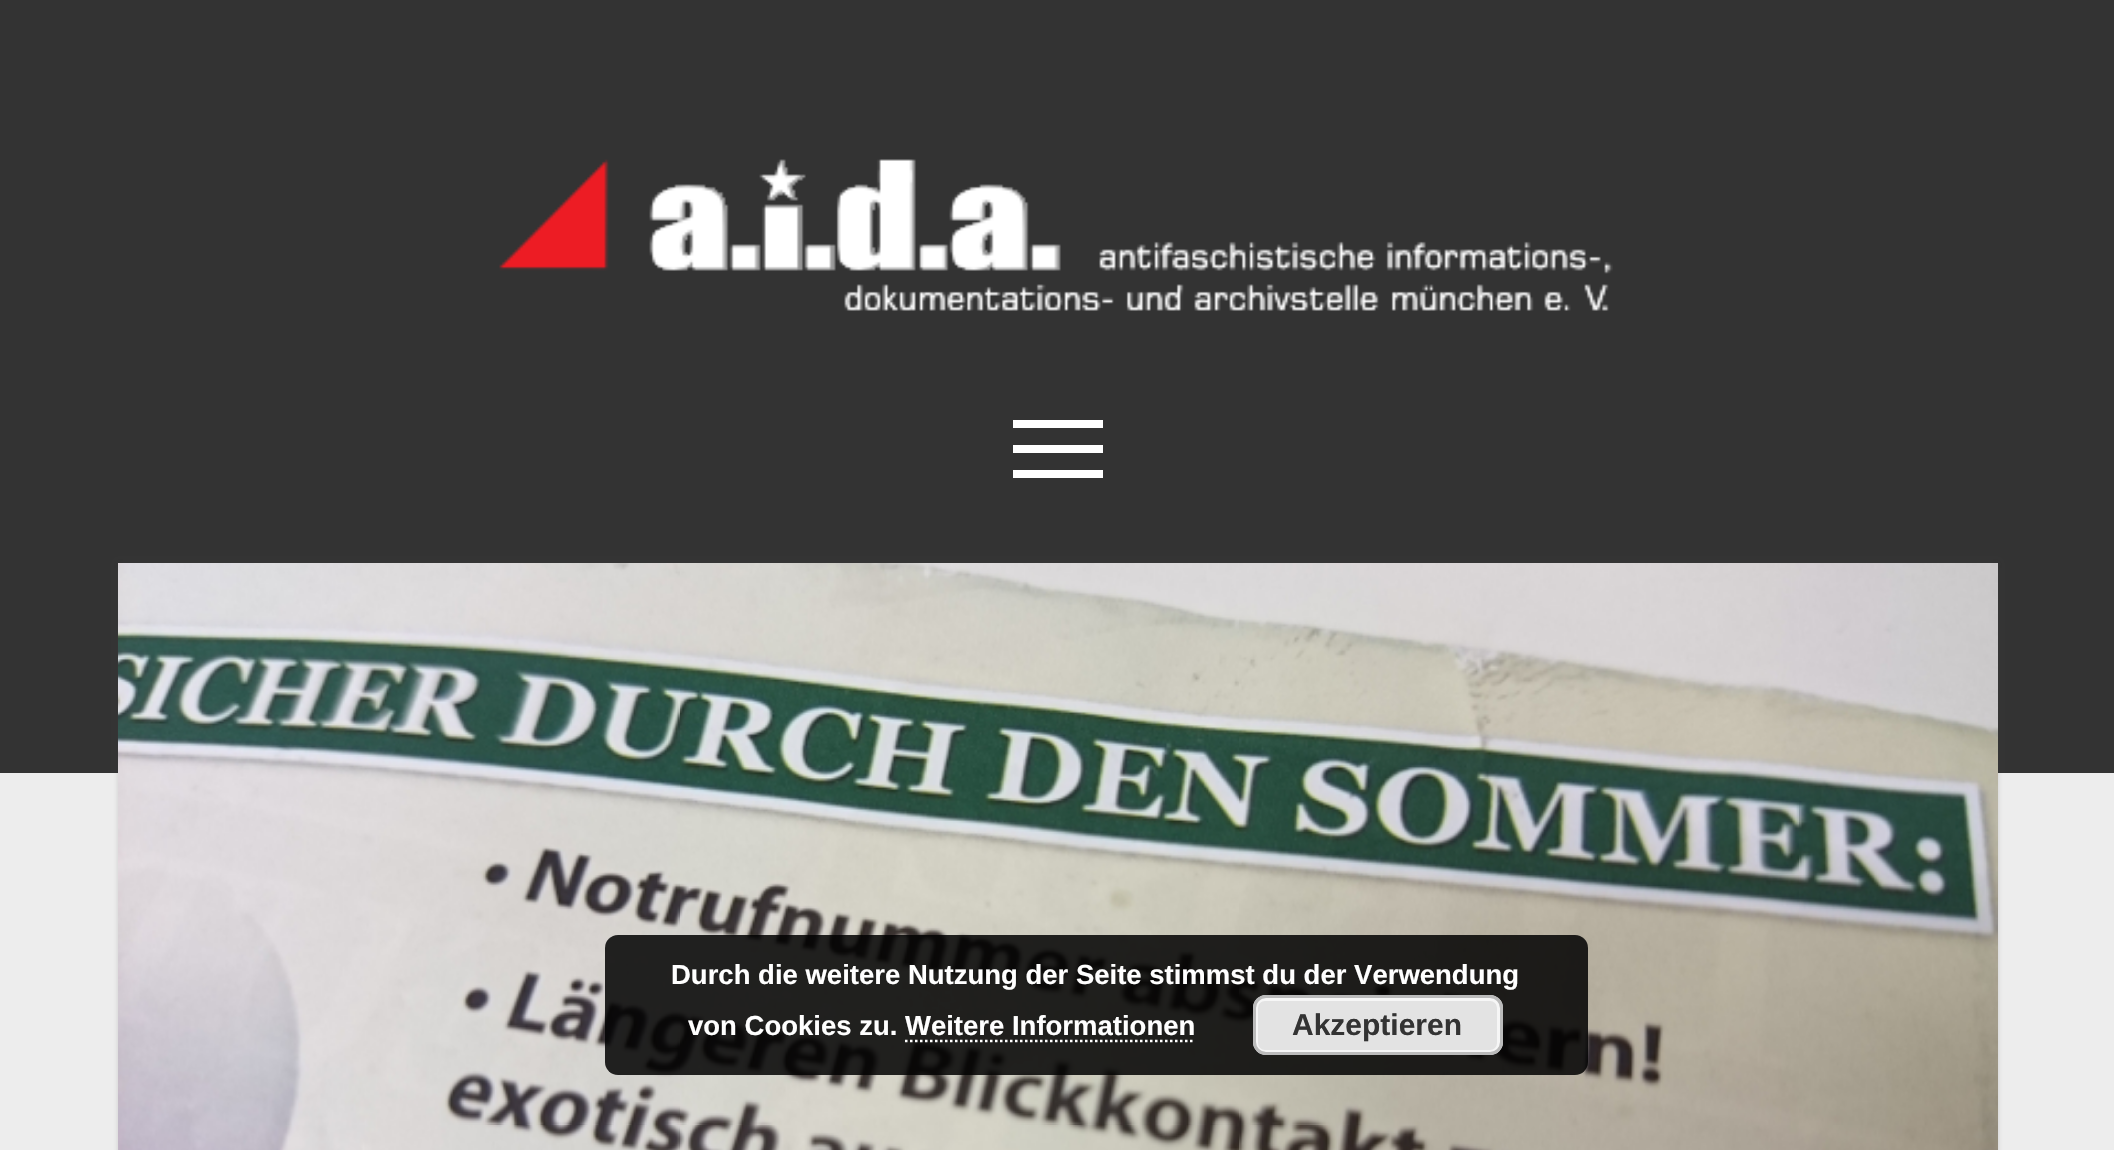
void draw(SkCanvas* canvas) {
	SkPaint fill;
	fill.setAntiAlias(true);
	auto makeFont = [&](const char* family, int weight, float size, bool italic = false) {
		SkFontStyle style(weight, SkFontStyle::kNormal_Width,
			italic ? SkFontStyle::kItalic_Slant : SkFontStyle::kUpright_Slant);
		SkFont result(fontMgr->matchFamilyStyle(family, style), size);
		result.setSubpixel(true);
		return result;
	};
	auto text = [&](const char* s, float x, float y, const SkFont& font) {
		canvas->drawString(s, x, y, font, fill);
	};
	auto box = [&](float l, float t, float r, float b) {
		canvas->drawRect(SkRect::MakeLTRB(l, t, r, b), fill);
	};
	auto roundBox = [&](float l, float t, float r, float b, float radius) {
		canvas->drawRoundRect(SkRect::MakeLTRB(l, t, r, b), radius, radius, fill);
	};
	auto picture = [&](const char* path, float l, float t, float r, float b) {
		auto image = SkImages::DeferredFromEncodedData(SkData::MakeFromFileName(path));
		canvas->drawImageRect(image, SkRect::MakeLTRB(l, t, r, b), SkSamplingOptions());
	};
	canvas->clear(0xFFEDEDED);
	fill.setColor(0xFF333333);
	box(0, 0, 2114, 773);
	picture("image0.png", 499, 159, 1613, 311);
	fill.setColor(0xFFFFFFFF);
	box(1013, 420, 1103, 428);
	box(1013, 445, 1103, 453);
	box(1013, 470, 1103, 478);
	fill.setColor(0x333A3A3A);
	fill.setMaskFilter(SkMaskFilter::MakeBlur(kNormal_SkBlurStyle, 2.5f));
	canvas->drawRect(SkRect::MakeLTRB(118, 563, 1998, 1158), fill);
	fill.setMaskFilter(nullptr);
	picture("image1.png", 118, 563, 1998, 1150);
	fill.setColor(0xD9000000);
	roundBox(605, 935, 1588, 1075, 13);
	fill.setColor(0xFFE3E3E3);
	roundBox(1253, 995, 1503, 1055, 13);
	fill.setStyle(SkPaint::kStroke_Style);
	fill.setStrokeWidth(3);
	fill.setColor(0xFFF6F6F6);
	canvas->drawRoundRect(SkRect::MakeLTRB(1256.5f, 999.5f, 1498.5f, 1051.5f), 8.5f, 8.5f, fill);
	fill.setColor(0xFFBBBBBB);
	canvas->drawRoundRect(SkRect::MakeLTRB(1254.5f, 996.5f, 1501.5f, 1053.5f), 11.5f, 11.5f, fill);
	fill.setStrokeWidth(2.5f);
	fill.setColor(0xFFFFFFFF);
	fill.setPathEffect(SkDashPathEffect::Make({{2.5f, 2.5f}}, 0));
	canvas->drawPath(SkPathBuilder().moveTo(905, 1041).lineTo(1195, 1041).detach(), fill);
	fill.setPathEffect(nullptr);
	auto font1 = makeFont("Liberation Sans", 700, 27.5f);
	fill.setStyle(SkPaint::kFill_Style);
	text("Durch die weitere Nutzung der Seite stimmst du der Verwendung", 671, 984, font1);
	text("von Cookies zu. Weitere Informationen", 688, 1035, font1);
	auto font2 = makeFont("Liberation Sans", 700, 30);
	fill.setColor(0xFF333333);
	text("Akzeptieren", 1292, 1035, font2);
}
